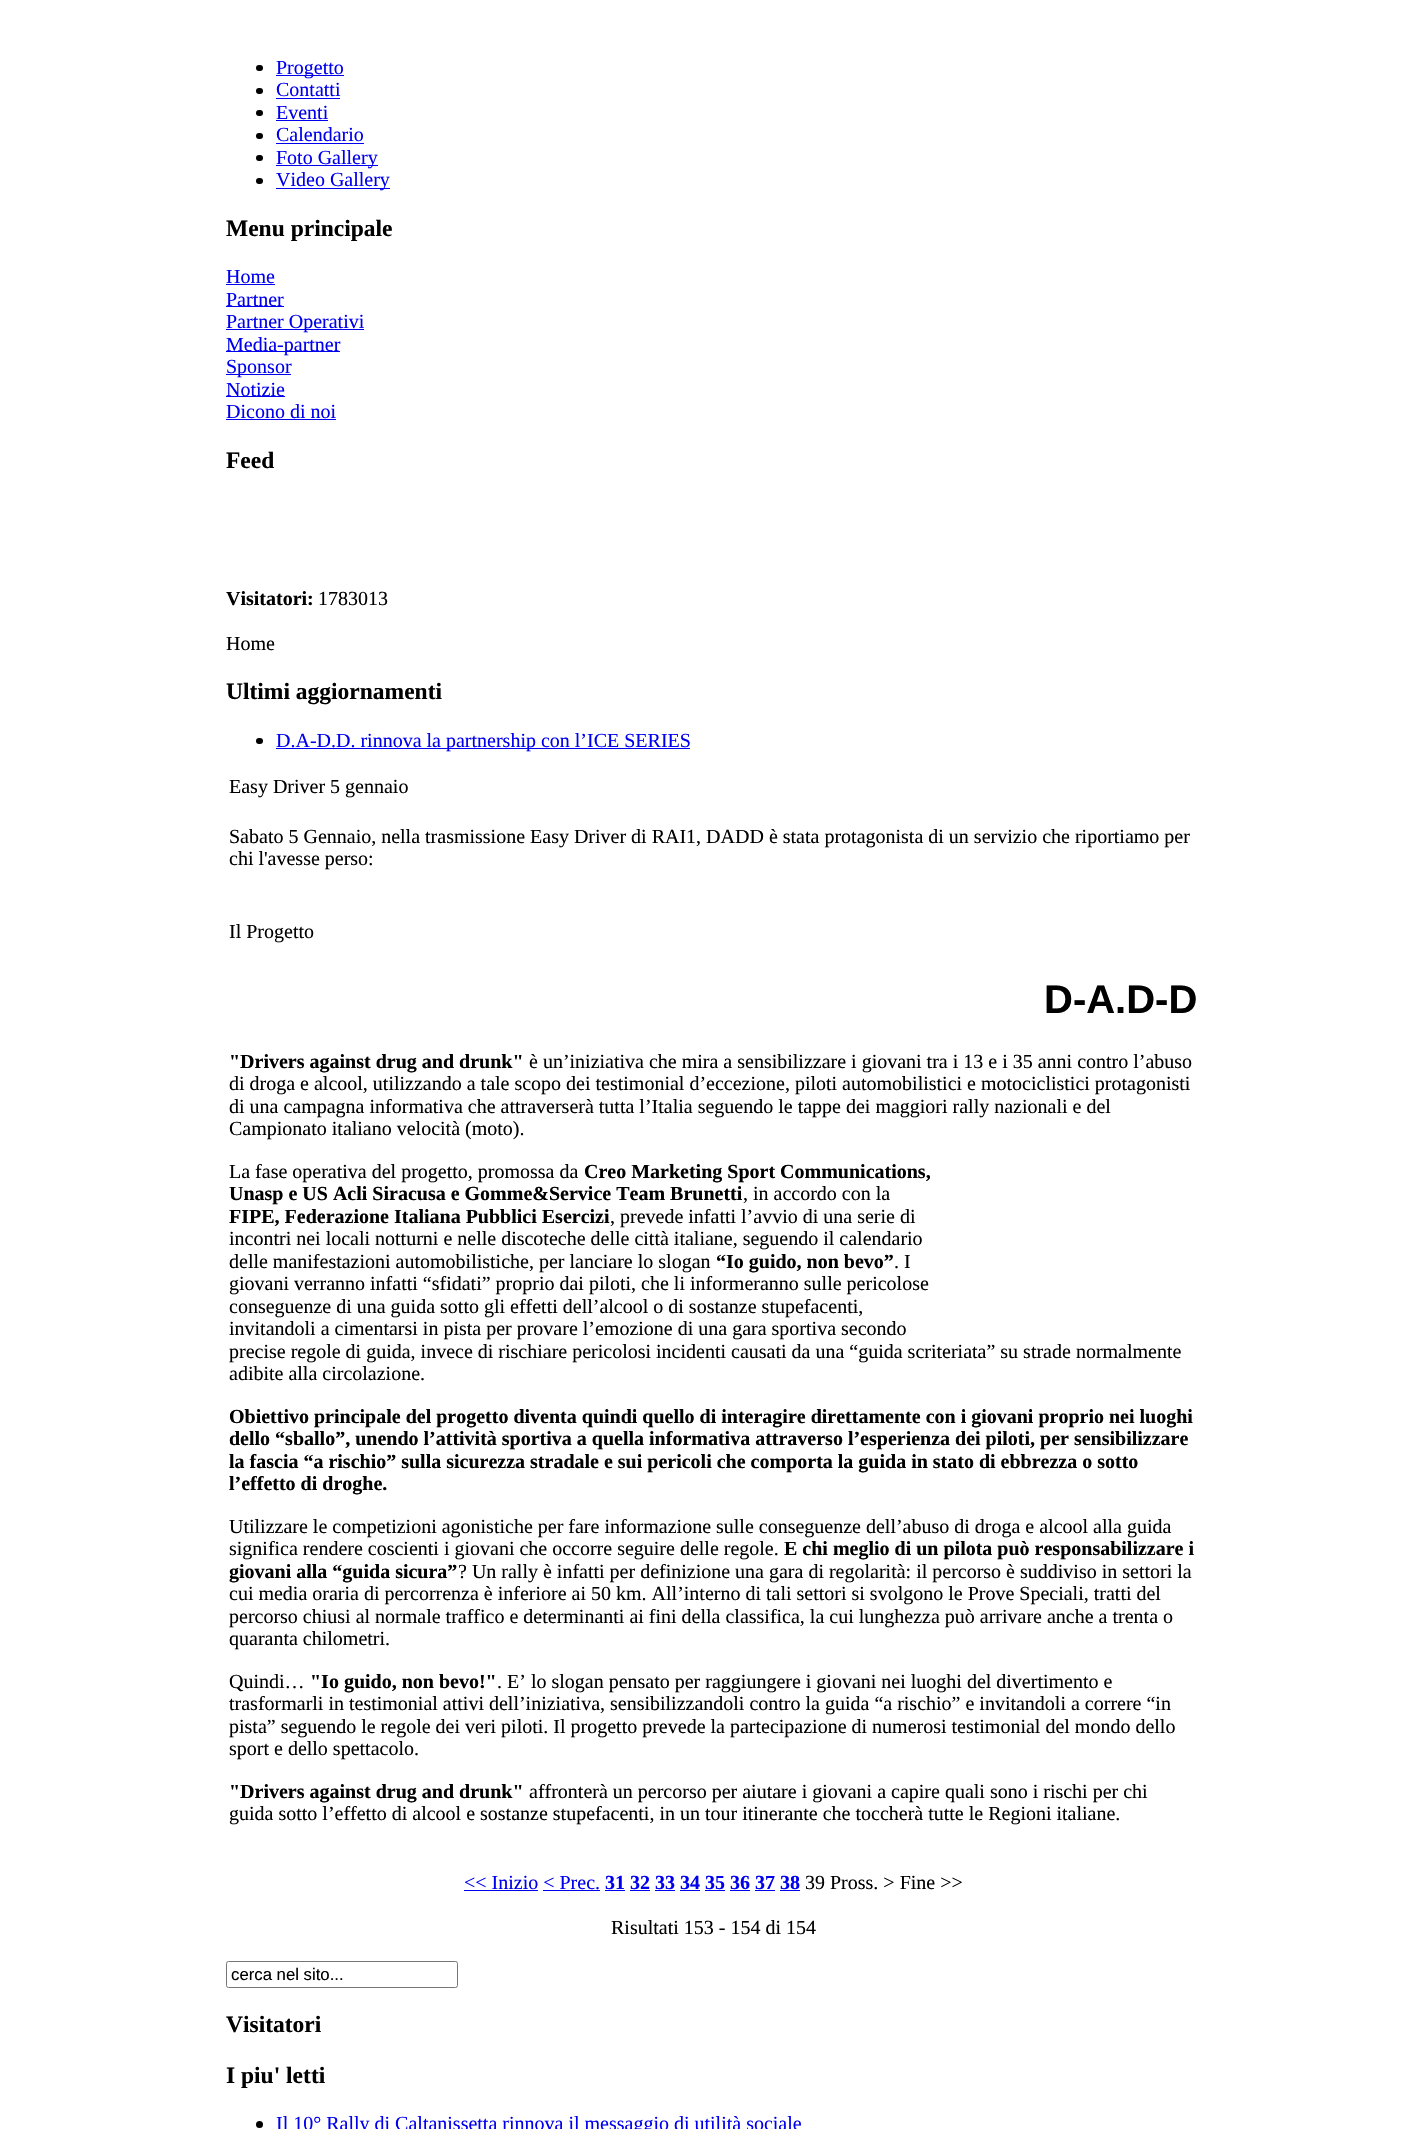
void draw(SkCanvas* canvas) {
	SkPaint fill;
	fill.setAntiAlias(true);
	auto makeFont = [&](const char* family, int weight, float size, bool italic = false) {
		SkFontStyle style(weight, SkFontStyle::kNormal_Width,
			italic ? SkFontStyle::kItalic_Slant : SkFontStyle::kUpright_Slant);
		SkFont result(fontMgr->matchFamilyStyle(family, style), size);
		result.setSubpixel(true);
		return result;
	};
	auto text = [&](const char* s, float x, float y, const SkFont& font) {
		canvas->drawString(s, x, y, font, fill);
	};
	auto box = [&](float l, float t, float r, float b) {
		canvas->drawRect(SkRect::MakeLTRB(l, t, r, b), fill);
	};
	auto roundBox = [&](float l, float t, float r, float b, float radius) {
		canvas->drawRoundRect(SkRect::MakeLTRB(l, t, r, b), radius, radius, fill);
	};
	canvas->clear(0xFFFFFFFF);
	fill.setColor(0xFF000000);
	roundBox(256, 65, 263, 71, 3);
	fill.setColor(0xFF0000EE);
	box(276, 75, 344, 76);
	fill.setColor(0xFF000000);
	roundBox(256, 88, 263, 94, 3);
	fill.setColor(0xFF0000EE);
	box(276, 98, 340, 99);
	fill.setColor(0xFF000000);
	roundBox(256, 110, 263, 116, 3);
	fill.setColor(0xFF0000EE);
	box(276, 120, 328, 121);
	fill.setColor(0xFF000000);
	roundBox(256, 133, 263, 139, 3);
	fill.setColor(0xFF0000EE);
	box(276, 143, 364, 144);
	fill.setColor(0xFF000000);
	roundBox(256, 155, 263, 161, 3);
	fill.setColor(0xFF0000EE);
	box(276, 165, 378, 166);
	fill.setColor(0xFF000000);
	roundBox(256, 178, 263, 184, 3);
	fill.setColor(0xFF0000EE);
	box(276, 188, 390, 189);
	box(226, 284, 275, 285);
	box(226, 306, 284, 307);
	box(226, 329, 364, 330);
	box(226, 351, 340, 352);
	box(226, 374, 291, 375);
	box(226, 396, 285, 397);
	box(226, 419, 336, 420);
	fill.setColor(0xFF000000);
	roundBox(256, 738, 263, 744, 3);
	fill.setColor(0xFF0000EE);
	box(276, 748, 690, 749);
	box(464, 1890, 538, 1891);
	box(605, 1890, 625, 1891);
	box(543, 1890, 600, 1891);
	box(630, 1890, 650, 1891);
	box(655, 1890, 675, 1891);
	box(680, 1890, 700, 1891);
	box(705, 1890, 725, 1891);
	box(730, 1890, 750, 1891);
	box(755, 1890, 775, 1891);
	box(780, 1890, 800, 1891);
	fill.setStyle(SkPaint::kStroke_Style);
	fill.setStrokeWidth(1);
	fill.setColor(0xFF767676);
	canvas->drawRoundRect(SkRect::MakeLTRB(226.5f, 1961.5f, 457.5f, 1987.5f), 2, 2, fill);
	fill.setStyle(SkPaint::kFill_Style);
	fill.setColor(0xFF000000);
	canvas->drawCircle(259.5f, 2124.5f, 3.5f, fill);
	auto font1 = makeFont("Liberation Serif", 400, 20);
	fill.setColor(0xFF0000EE);
	text("Progetto", 276, 74, font1);
	text("Contatti", 276, 96, font1);
	text("Eventi", 276, 119, font1);
	text("Calendario", 276, 141, font1);
	text("Foto Gallery", 276, 164, font1);
	text("Video Gallery", 276, 186, font1);
	auto font2 = makeFont("Liberation Serif", 700, 23.5f);
	fill.setColor(0xFF000000);
	text("Menu principale", 226, 236, font2);
	fill.setColor(0xFF0000EE);
	text("Home", 226, 283, font1);
	text("Partner", 226, 306, font1);
	text("Partner Operativi", 226, 328, font1);
	text("Media-partner", 226, 351, font1);
	text("Sponsor", 226, 373, font1);
	text("Notizie", 226, 396, font1);
	text("Dicono di noi", 226, 418, font1);
	fill.setColor(0xFF000000);
	text("Feed", 226, 468, font2);
	auto font3 = makeFont("Liberation Serif", 700, 20);
	text("Visitatori:", 226, 605, font3);
	text("1783013", 318, 605, font1);
	text("Home", 226, 650, font1);
	text("Ultimi aggiornamenti", 226, 699, font2);
	fill.setColor(0xFF0000EE);
	text("D.A-D.D. rinnova la partnership con l’ICE SERIES", 276, 747, font1);
	fill.setColor(0xFF000000);
	text("Easy Driver 5 gennaio", 229, 793, font1);
	text("Sabato 5 Gennaio, nella trasmissione Easy Driver di RAI1, DADD è stata protagonista di un servizio che riportiamo per", 229, 843, font1);
	text("chi l'avesse perso:", 229, 865, font1);
	text("Il Progetto", 229, 938, font1);
	auto font4 = makeFont("Liberation Sans", 700, 40);
	text("D-A.D-D", 1044, 1013, font4);
	text("\"Drivers against drug and drunk\"", 229, 1068, font3);
	text("è un’iniziativa che mira a sensibilizzare i giovani tra i 13 e i 35 anni contro l’abuso", 529, 1068, font1);
	text("di droga e alcool, utilizzando a tale scopo dei testimonial d’eccezione, piloti automobilistici e motociclistici protagonisti", 229, 1090, font1);
	text("di una campagna informativa che attraverserà tutta l’Italia seguendo le tappe dei maggiori rally nazionali e del", 229, 1113, font1);
	text("Campionato italiano velocità (moto).", 229, 1135, font1);
	text("La fase operativa del progetto, promossa da", 229, 1178, font1);
	text("Creo Marketing Sport Communications,", 584, 1178, font3);
	text("Unasp e US Acli Siracusa e Gomme&Service Team Brunetti", 229, 1200, font3);
	text(", in accordo con la", 743, 1200, font1);
	text("FIPE, Federazione Italiana Pubblici Esercizi", 229, 1223, font3);
	text(", prevede infatti l’avvio di una serie di", 610, 1223, font1);
	text("incontri nei locali notturni e nelle discoteche delle città italiane, seguendo il calendario", 229, 1245, font1);
	text("delle manifestazioni automobilistiche, per lanciare lo slogan", 229, 1268, font1);
	text("“Io guido, non bevo”", 716, 1268, font3);
	text(". I", 894, 1268, font1);
	text("giovani verranno infatti “sfidati” proprio dai piloti, che li informeranno sulle pericolose", 229, 1290, font1);
	text("conseguenze di una guida sotto gli effetti dell’alcool o di sostanze stupefacenti,", 229, 1313, font1);
	text("invitandoli a cimentarsi in pista per provare l’emozione di una gara sportiva secondo", 229, 1335, font1);
	text("precise regole di guida, invece di rischiare pericolosi incidenti causati da una “guida scriteriata” su strade normalmente", 229, 1358, font1);
	text("adibite alla circolazione.", 229, 1380, font1);
	text("Obiettivo principale del progetto diventa quindi quello di interagire direttamente con i giovani proprio nei luoghi", 229, 1423, font3);
	text("dello “sballo”, unendo l’attività sportiva a quella informativa attraverso l’esperienza dei piloti, per sensibilizzare", 229, 1445, font3);
	text("la fascia “a rischio” sulla sicurezza stradale e sui pericoli che comporta la guida in stato di ebbrezza o sotto", 229, 1468, font3);
	text("l’effetto di droghe.", 229, 1490, font3);
	text("Utilizzare le competizioni agonistiche per fare informazione sulle conseguenze dell’abuso di droga e alcool alla guida", 229, 1533, font1);
	text("significa rendere coscienti i giovani che occorre seguire delle regole.", 229, 1555, font1);
	text("E chi meglio di un pilota può responsabilizzare i", 784, 1555, font3);
	text("giovani alla “guida sicura”", 229, 1578, font3);
	text("? Un rally è infatti per definizione una gara di regolarità: il percorso è suddiviso in settori la", 458, 1578, font1);
	text("cui media oraria di percorrenza è inferiore ai 50 km. All’interno di tali settori si svolgono le Prove Speciali, tratti del", 229, 1600, font1);
	text("percorso chiusi al normale traffico e determinanti ai fini della classifica, la cui lunghezza può arrivare anche a trenta o", 229, 1623, font1);
	text("quaranta chilometri.", 229, 1645, font1);
	text("Quindi…", 229, 1688, font1);
	text("\"Io guido, non bevo!\"", 310, 1688, font3);
	text(". E’ lo slogan pensato per raggiungere i giovani nei luoghi del divertimento e", 497, 1688, font1);
	text("trasformarli in testimonial attivi dell’iniziativa, sensibilizzandoli contro la guida “a rischio” e invitandoli a correre “in", 229, 1710, font1);
	text("pista” seguendo le regole dei veri piloti. Il progetto prevede la partecipazione di numerosi testimonial del mondo dello", 229, 1733, font1);
	text("sport e dello spettacolo.", 229, 1755, font1);
	text("\"Drivers against drug and drunk\"", 229, 1798, font3);
	text("affronterà un percorso per aiutare i giovani a capire quali sono i rischi per chi", 529, 1798, font1);
	text("guida sotto l’effetto di alcool e sostanze stupefacenti, in un tour itinerante che toccherà tutte le Regioni italiane.", 229, 1820, font1);
	fill.setColor(0xFF0000EE);
	text("<< Inizio < Prec.", 464, 1889, font1);
	text("31 32 33 34 35 36 37 38", 605, 1889, font3);
	fill.setColor(0xFF000000);
	text("39 Pross. > Fine >>", 805, 1889, font1);
	text("Risultati 153 - 154 di 154", 611, 1934, font1);
	auto font5 = makeFont("Liberation Sans", 400, 16.75f);
	text("cerca nel sito...", 231, 1980, font5);
	text("Visitatori", 226, 2032, font2);
	text("I piu' letti", 226, 2083, font2);
	fill.setColor(0xFF0000EE);
	text("Il 10° Rally di Caltanissetta rinnova il messaggio di utilità sociale", 276, 2130, font1);
}
